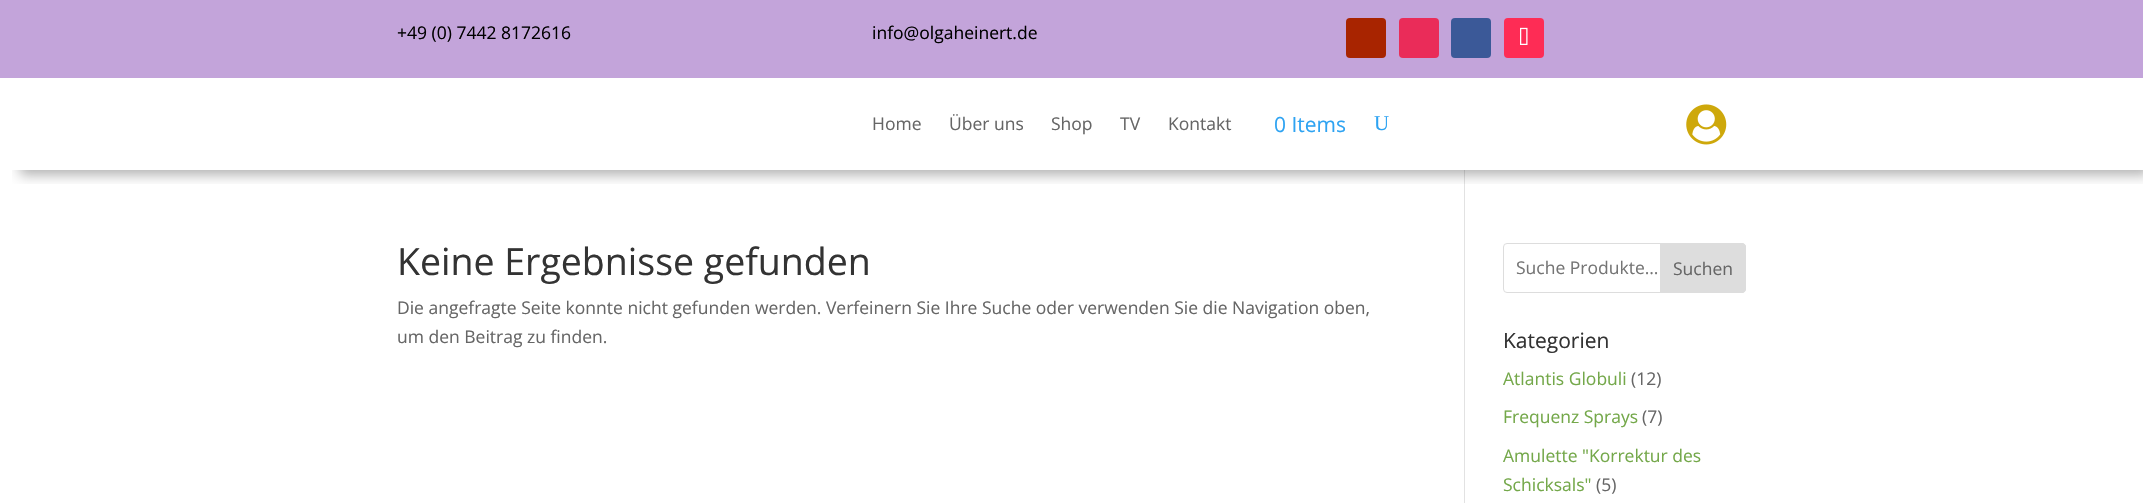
void draw(SkCanvas* canvas) {
	SkPaint fill;
	fill.setAntiAlias(true);
	auto makeFont = [&](const char* family, int weight, float size, bool italic = false) {
		SkFontStyle style(weight, SkFontStyle::kNormal_Width,
			italic ? SkFontStyle::kItalic_Slant : SkFontStyle::kUpright_Slant);
		SkFont result(fontMgr->matchFamilyStyle(family, style), size);
		result.setSubpixel(true);
		return result;
	};
	auto text = [&](const char* s, float x, float y, const SkFont& font) {
		canvas->drawString(s, x, y, font, fill);
	};
	auto box = [&](float l, float t, float r, float b) {
		canvas->drawRect(SkRect::MakeLTRB(l, t, r, b), fill);
	};
	auto roundBox = [&](float l, float t, float r, float b, float radius) {
		canvas->drawRoundRect(SkRect::MakeLTRB(l, t, r, b), radius, radius, fill);
	};
	auto picture = [&](const char* path, float l, float t, float r, float b) {
		auto image = SkImages::DeferredFromEncodedData(SkData::MakeFromFileName(path));
		canvas->drawImageRect(image, SkRect::MakeLTRB(l, t, r, b), SkSamplingOptions());
	};
	canvas->clear(0xFFFFFFFF);
	fill.setColor(0xFFC3A4DA);
	box(0, 0, 2143, 78);
	fill.setColor(0xFFA82400);
	roundBox(1346, 18, 1386, 58, 4);
	fill.setColor(0xFFEA2C59);
	roundBox(1399, 18, 1439, 58, 4);
	fill.setColor(0xFF3B5998);
	roundBox(1451, 18, 1491, 58, 4);
	fill.setColor(0xFFFE2C55);
	roundBox(1504, 18, 1544, 58, 4);
	picture("image0.png", 1520, 27, 1528, 45);
	fill.setColor(0xFFE2E2E2);
	box(1464, 170, 1465, 503);
	canvas->save();
	canvas->clipRect(SkRect::MakeLTRB(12, 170, 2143, 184));
	fill.setColor(0x4D000000);
	fill.setMaskFilter(SkMaskFilter::MakeBlur(kNormal_SkBlurStyle, 6));
	canvas->drawRect(SkRect::MakeLTRB(20, 98, 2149, 175), fill);
	fill.setMaskFilter(nullptr);
	canvas->restore();
	picture("image1.png", 1686, 104, 1727, 145);
	fill.setStyle(SkPaint::kStroke_Style);
	fill.setStrokeWidth(1);
	fill.setColor(0xFFDDDDDD);
	canvas->drawRoundRect(SkRect::MakeLTRB(1503.5f, 243.5f, 1745.5f, 292.5f), 3.5f, 3.5f, fill);
	fill.setStyle(SkPaint::kFill_Style);
	canvas->drawPath(SkPathBuilder().moveTo(1660.5f, 243.5f).lineTo(1742, 243.5f).cubicTo(1744, 243.5f, 1745.5f, 245, 1745.5f, 247).lineTo(1745.5f, 289).cubicTo(1745.5f, 291, 1744, 292.5f, 1742, 292.5f).lineTo(1660.5f, 292.5f).close().detach(), fill);
	fill.setStyle(SkPaint::kStroke_Style);
	canvas->drawPath(SkPathBuilder().moveTo(1660.5f, 243.5f).lineTo(1742, 243.5f).cubicTo(1744, 243.5f, 1745.5f, 245, 1745.5f, 247).lineTo(1745.5f, 289).cubicTo(1745.5f, 291, 1744, 292.5f, 1742, 292.5f).lineTo(1660.5f, 292.5f).close().detach(), fill);
	auto font1 = makeFont("Open Sans", 400, 17.5f);
	fill.setStyle(SkPaint::kFill_Style);
	fill.setColor(0xFF000000);
	text("+49 (0) 7442 8172616", 397, 39, font1);
	text("info@olgaheinert.de", 872, 39, font1);
	fill.setColor(0xFF666666);
	text("Home", 872, 130, font1);
	text("Über uns", 949, 130, font1);
	text("Shop", 1051, 130, font1);
	text("TV", 1120, 130, font1);
	text("Kontakt", 1168, 130, font1);
	auto font2 = makeFont("Open Sans", 400, 21);
	fill.setColor(0xFF2EA3F2);
	text("0 Items", 1274, 132, font2);
	auto font3 = makeFont("Liberation Serif", 400, 21);
	text("U", 1374, 130, font3);
	auto font4 = makeFont("Open Sans", 400, 37.5f);
	fill.setColor(0xFF333333);
	text("Keine Ergebnisse gefunden", 397, 275, font4);
	fill.setColor(0xFF666666);
	text("Die angefragte Seite konnte nicht gefunden werden. Verfeinern Sie Ihre Suche oder verwenden Sie die Navigation oben,", 397, 314, font1);
	text("um den Beitrag zu finden.", 397, 343, font1);
	fill.setColor(0xFF757575);
	text("Suche Produkte…", 1516, 274, font1);
	fill.setColor(0xFF666666);
	text("Suchen", 1673, 275, font1);
	fill.setColor(0xFF333333);
	text("Kategorien", 1503, 348, font2);
	fill.setColor(0xFF74A84A);
	text("Atlantis Globuli", 1503, 385, font1);
	fill.setColor(0xFF666666);
	text("(12)", 1631, 385, font1);
	fill.setColor(0xFF74A84A);
	text("Frequenz Sprays", 1503, 423, font1);
	fill.setColor(0xFF666666);
	text("(7)", 1642, 423, font1);
	fill.setColor(0xFF74A84A);
	text("Amulette \"Korrektur des", 1503, 462, font1);
	text("Schicksals\"", 1503, 491, font1);
	fill.setColor(0xFF666666);
	text("(5)", 1596, 491, font1);
}
